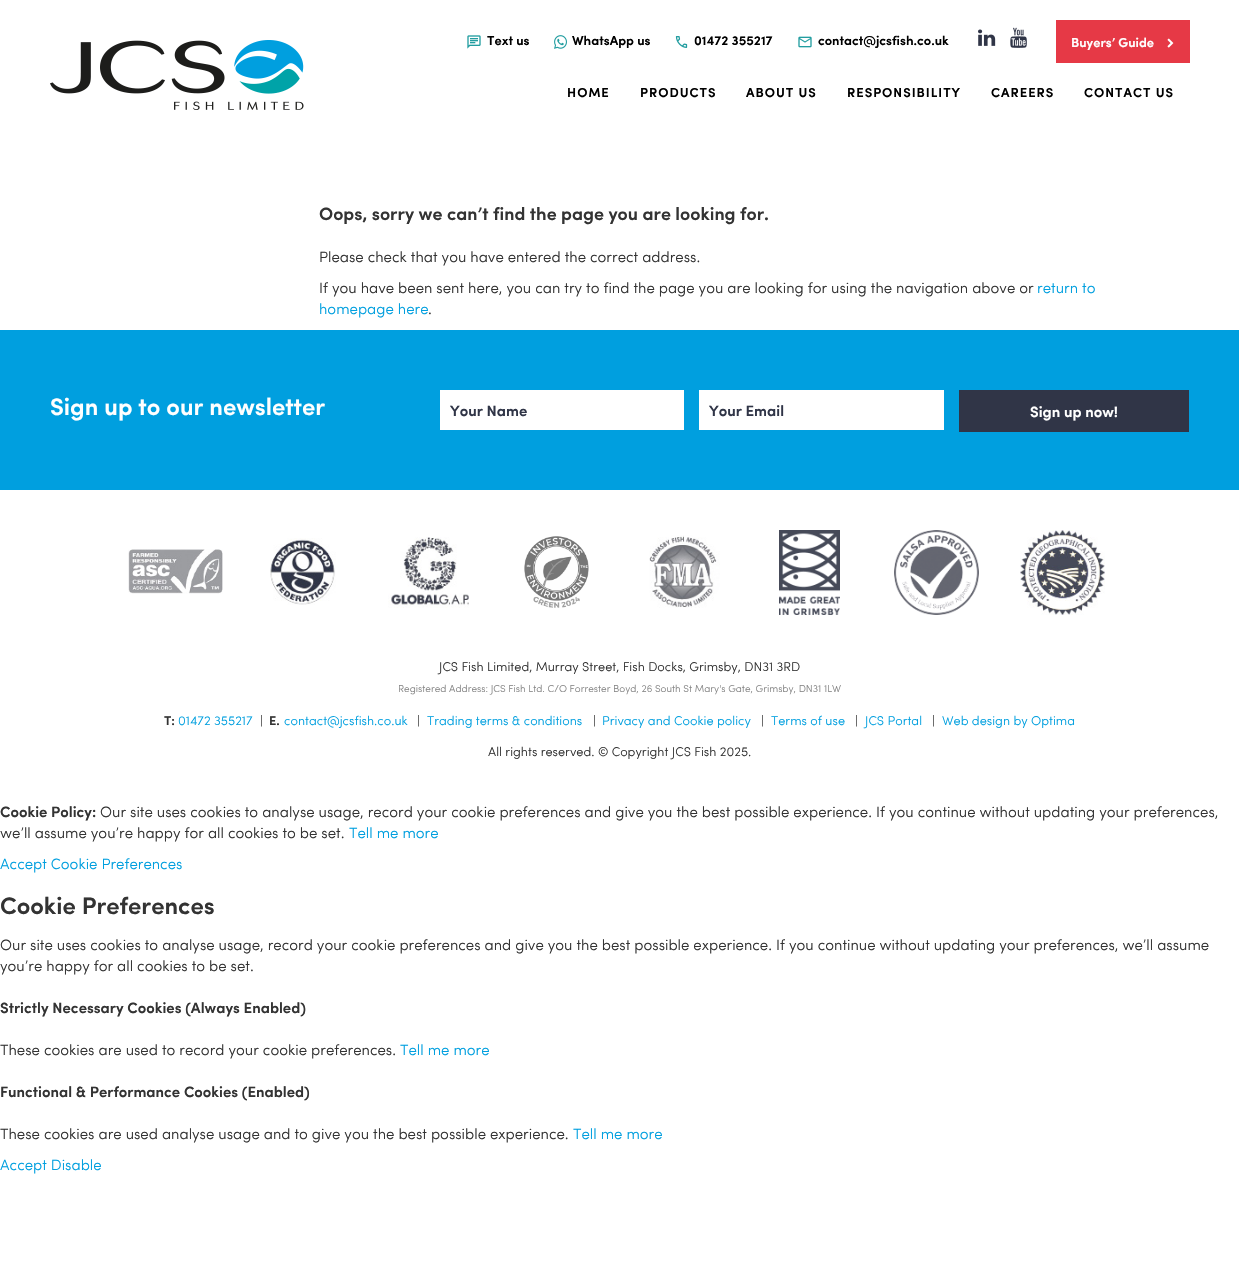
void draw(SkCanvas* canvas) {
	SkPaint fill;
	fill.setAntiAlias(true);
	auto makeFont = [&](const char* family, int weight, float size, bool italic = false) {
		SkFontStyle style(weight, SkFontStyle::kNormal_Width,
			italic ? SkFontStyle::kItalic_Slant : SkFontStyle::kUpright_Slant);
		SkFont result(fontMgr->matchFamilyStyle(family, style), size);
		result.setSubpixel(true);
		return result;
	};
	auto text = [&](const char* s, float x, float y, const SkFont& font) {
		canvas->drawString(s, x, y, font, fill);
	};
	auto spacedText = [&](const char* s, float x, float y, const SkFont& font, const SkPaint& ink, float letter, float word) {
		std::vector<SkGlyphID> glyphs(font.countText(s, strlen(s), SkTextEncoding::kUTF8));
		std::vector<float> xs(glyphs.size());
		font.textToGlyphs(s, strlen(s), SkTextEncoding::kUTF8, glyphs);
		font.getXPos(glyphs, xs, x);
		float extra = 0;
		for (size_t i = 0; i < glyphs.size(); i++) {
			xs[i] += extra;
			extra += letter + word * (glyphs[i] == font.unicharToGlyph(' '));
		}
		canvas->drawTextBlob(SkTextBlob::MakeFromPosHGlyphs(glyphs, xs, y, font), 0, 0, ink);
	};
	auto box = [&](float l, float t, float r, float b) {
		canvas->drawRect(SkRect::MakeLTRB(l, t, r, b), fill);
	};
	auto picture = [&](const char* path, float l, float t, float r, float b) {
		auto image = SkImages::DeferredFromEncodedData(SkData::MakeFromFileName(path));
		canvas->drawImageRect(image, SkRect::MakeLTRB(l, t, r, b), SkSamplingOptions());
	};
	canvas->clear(0xFFFFFFFF);
	picture("image0.png", 50, 40, 304, 110);
	picture("image1.png", 467, 35, 481, 49);
	picture("image2.png", 554, 35, 567, 49);
	picture("image3.png", 675, 36, 688, 48);
	picture("image4.png", 798, 36, 812, 48);
	picture("image5.png", 978, 29, 996, 46);
	picture("image6.png", 1010, 27, 1027, 48);
	fill.setColor(0xFFE63946);
	box(1056, 20, 1190, 63);
	picture("image7.png", 1167, 38, 1174, 48);
	fill.setColor(0xFF009FDF);
	box(0, 330, 1239, 490);
	fill.setColor(0xFFFFFFFF);
	box(440, 390, 684, 430);
	box(699, 390, 944, 430);
	fill.setColor(0xFF303547);
	box(959, 390, 1189, 432);
	picture("image8.png", 128, 549, 223, 594);
	picture("image9.png", 270, 538, 336, 605);
	picture("image10.png", 388, 537, 469, 608);
	picture("image11.png", 524, 536, 589, 608);
	picture("image12.png", 649, 535, 720, 608);
	picture("image13.png", 779, 530, 840, 615);
	picture("image14.png", 894, 530, 979, 615);
	picture("image15.png", 1020, 530, 1105, 615);
	auto font1 = makeFont("Sofia", 600, 13);
	fill.setColor(0xFF000000);
	text("Text us", 487, 45, font1);
	text("WhatsApp us", 572, 45, font1);
	text("01472 355217", 694, 45, font1);
	text("contact@jcsfish.co.uk", 818, 45, font1);
	fill.setColor(0xFFFFFFFF);
	text("Buyers’ Guide", 1071, 47, font1);
	fill.setColor(0xFF000000);
	spacedText("HOME", 567, 97, font1, fill, 1, 0);
	spacedText("PRODUCTS", 640, 97, font1, fill, 1, 0);
	spacedText("ABOUT US", 746, 97, font1, fill, 1, 0);
	spacedText("RESPONSIBILITY", 847, 97, font1, fill, 1, 0);
	spacedText("CAREERS", 991, 97, font1, fill, 1, 0);
	spacedText("CONTACT US", 1084, 97, font1, fill, 1, 0);
	auto font2 = makeFont("Sofia", 600, 18);
	fill.setColor(0xFF333333);
	text("Oops, sorry we can’t find the page you are looking for.", 319, 220, font2);
	auto font3 = makeFont("Sofia", 300, 15);
	text("Please check that you have entered the correct address.", 319, 262, font3);
	text("If you have been sent here, you can try to find the page you are looking for using the navigation above or", 319, 293, font3);
	fill.setColor(0xFF009FDF);
	text("return to", 1037, 293, font3);
	text("homepage here", 319, 314, font3);
	fill.setColor(0xFF333333);
	text(".", 428, 314, font3);
	auto font4 = makeFont("Sofia", 600, 24);
	fill.setColor(0xFFFFFFFF);
	text("Sign up to our newsletter", 50, 415, font4);
	auto font5 = makeFont("Sofia", 600, 15);
	fill.setColor(0xFF303547);
	text("Your Name", 450, 416, font5);
	text("Your Email", 709, 416, font5);
	fill.setColor(0xFFFFFFFF);
	text("Sign up now!", 1030, 417, font5);
	auto font6 = makeFont("Sofia", 300, 12.75f);
	fill.setColor(0xFF333333);
	text("JCS Fish Limited, Murray Street, Fish Docks, Grimsby, DN31 3RD", 439, 671, font6);
	auto font7 = makeFont("Sofia", 300, 10);
	fill.setColor(0xFF858585);
	text("Registered Address: JCS Fish Ltd. C/O Forrester Boyd, 26 South St Mary's Gate, Grimsby, DN31 1LW", 398, 692, font7);
	auto font8 = makeFont("Sofia", 600, 12.75f);
	fill.setColor(0xFF333333);
	text("T:", 164, 725, font8);
	fill.setColor(0xFF009FDF);
	text("01472 355217", 178, 725, font6);
	fill.setColor(0xFF333333);
	text("|", 260, 725, font6);
	text("E.", 269, 725, font8);
	fill.setColor(0xFF009FDF);
	text("contact@jcsfish.co.uk", 284, 725, font6);
	fill.setColor(0xFF333333);
	text("|", 417, 725, font6);
	fill.setColor(0xFF009FDF);
	text("Trading terms & conditions", 427, 725, font6);
	fill.setColor(0xFF333333);
	text("|", 593, 725, font6);
	fill.setColor(0xFF009FDF);
	text("Privacy and Cookie policy", 602, 725, font6);
	fill.setColor(0xFF333333);
	text("|", 761, 725, font6);
	fill.setColor(0xFF009FDF);
	text("Terms of use", 771, 725, font6);
	fill.setColor(0xFF333333);
	text("|", 855, 725, font6);
	fill.setColor(0xFF009FDF);
	text("JCS Portal", 865, 725, font6);
	fill.setColor(0xFF333333);
	text("|", 932, 725, font6);
	fill.setColor(0xFF009FDF);
	text("Web design by Optima", 942, 725, font6);
	fill.setColor(0xFF333333);
	text("All rights reserved. © Copyright JCS Fish 2025.", 488, 756, font6);
	text("Cookie Policy:", 0, 817, font5);
	text("Our site uses cookies to analyse usage, record your cookie preferences and give you the best possible experience. If you continue without updating your preferences,", 100, 817, font3);
	text("we’ll assume you’re happy for all cookies to be set.", 0, 838, font3);
	fill.setColor(0xFF009FDF);
	text("Tell me more", 349, 838, font3);
	text("Accept Cookie Preferences", 0, 869, font3);
	fill.setColor(0xFF333333);
	text("Cookie Preferences", 0, 914, font4);
	text("Our site uses cookies to analyse usage, record your cookie preferences and give you the best possible experience. If you continue without updating your preferences, we’ll assume", 0, 950, font3);
	text("you’re happy for all cookies to be set.", 0, 971, font3);
	text("Strictly Necessary Cookies (Always Enabled)", 0, 1013, font5);
	text("These cookies are used to record your cookie preferences.", 0, 1055, font3);
	fill.setColor(0xFF009FDF);
	text("Tell me more", 400, 1055, font3);
	fill.setColor(0xFF333333);
	text("Functional & Performance Cookies (Enabled)", 0, 1097, font5);
	text("These cookies are used analyse usage and to give you the best possible experience.", 0, 1139, font3);
	fill.setColor(0xFF009FDF);
	text("Tell me more", 573, 1139, font3);
	text("Accept Disable", 0, 1170, font3);
}
